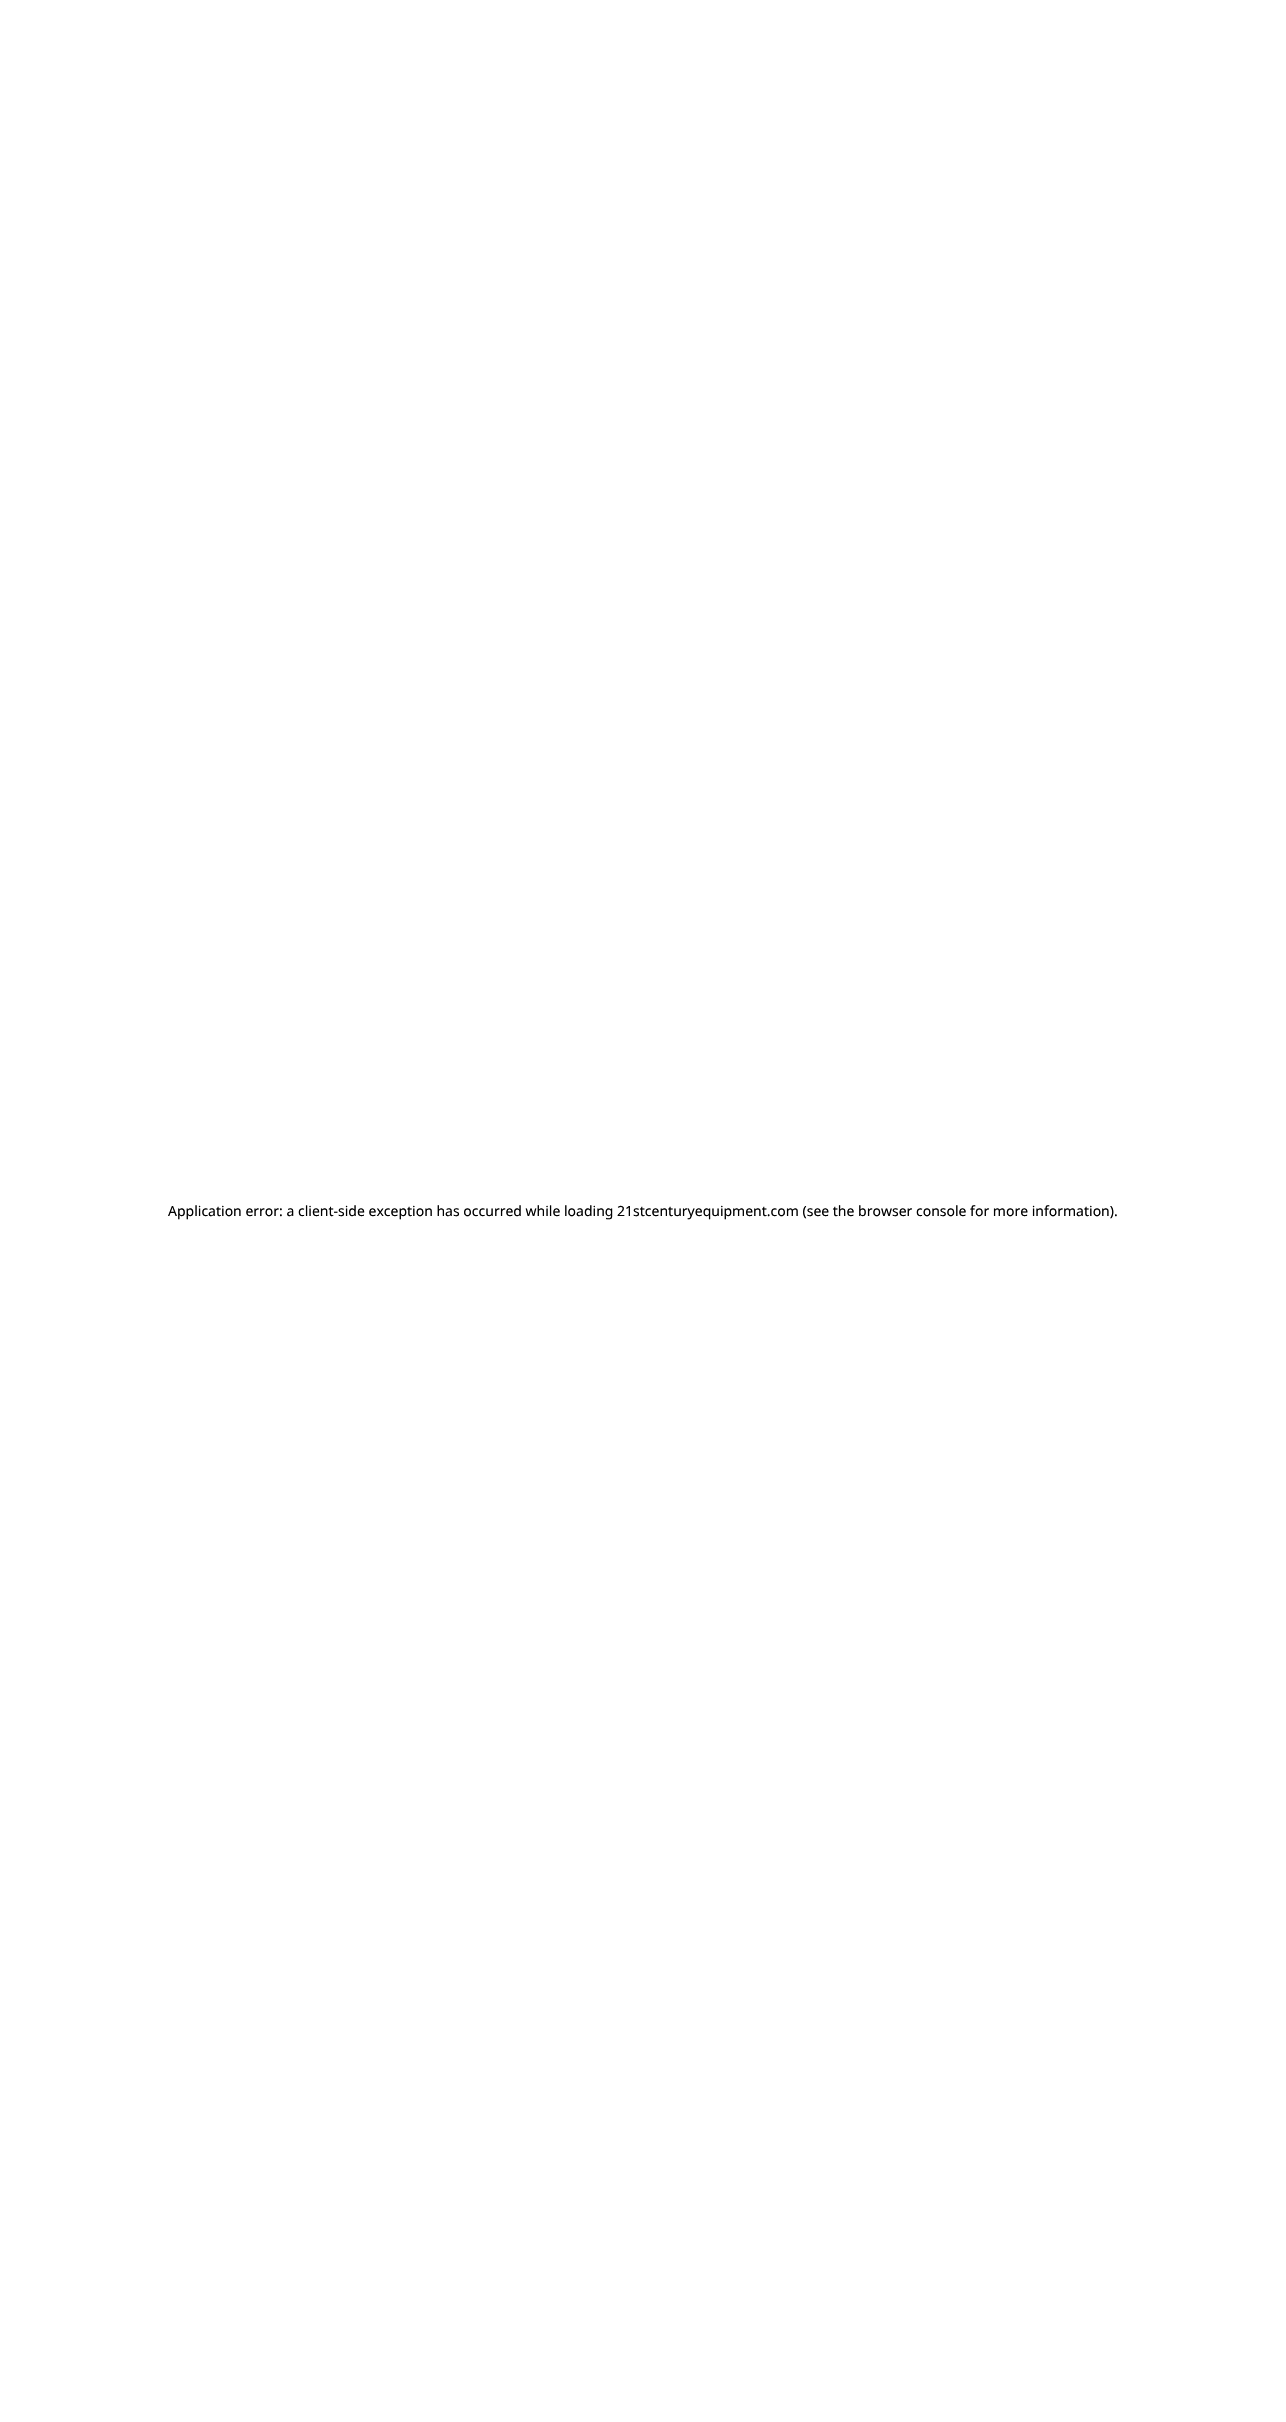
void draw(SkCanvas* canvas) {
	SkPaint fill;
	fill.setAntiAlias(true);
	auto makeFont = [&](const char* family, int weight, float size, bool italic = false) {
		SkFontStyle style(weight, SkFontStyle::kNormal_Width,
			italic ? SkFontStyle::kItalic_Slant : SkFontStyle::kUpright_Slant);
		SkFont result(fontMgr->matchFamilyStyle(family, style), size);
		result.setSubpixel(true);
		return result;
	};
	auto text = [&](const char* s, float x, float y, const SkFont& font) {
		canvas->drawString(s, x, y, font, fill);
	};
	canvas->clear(0xFFFFFFFF);
	auto font1 = makeFont("Noto Sans", 400, 14);
	fill.setColor(0xFF000000);
	text("Application error: a client-side exception has occurred while loading 21stcenturyequipment.com (see the browser console for more information).", 168, 1216, font1);
}
